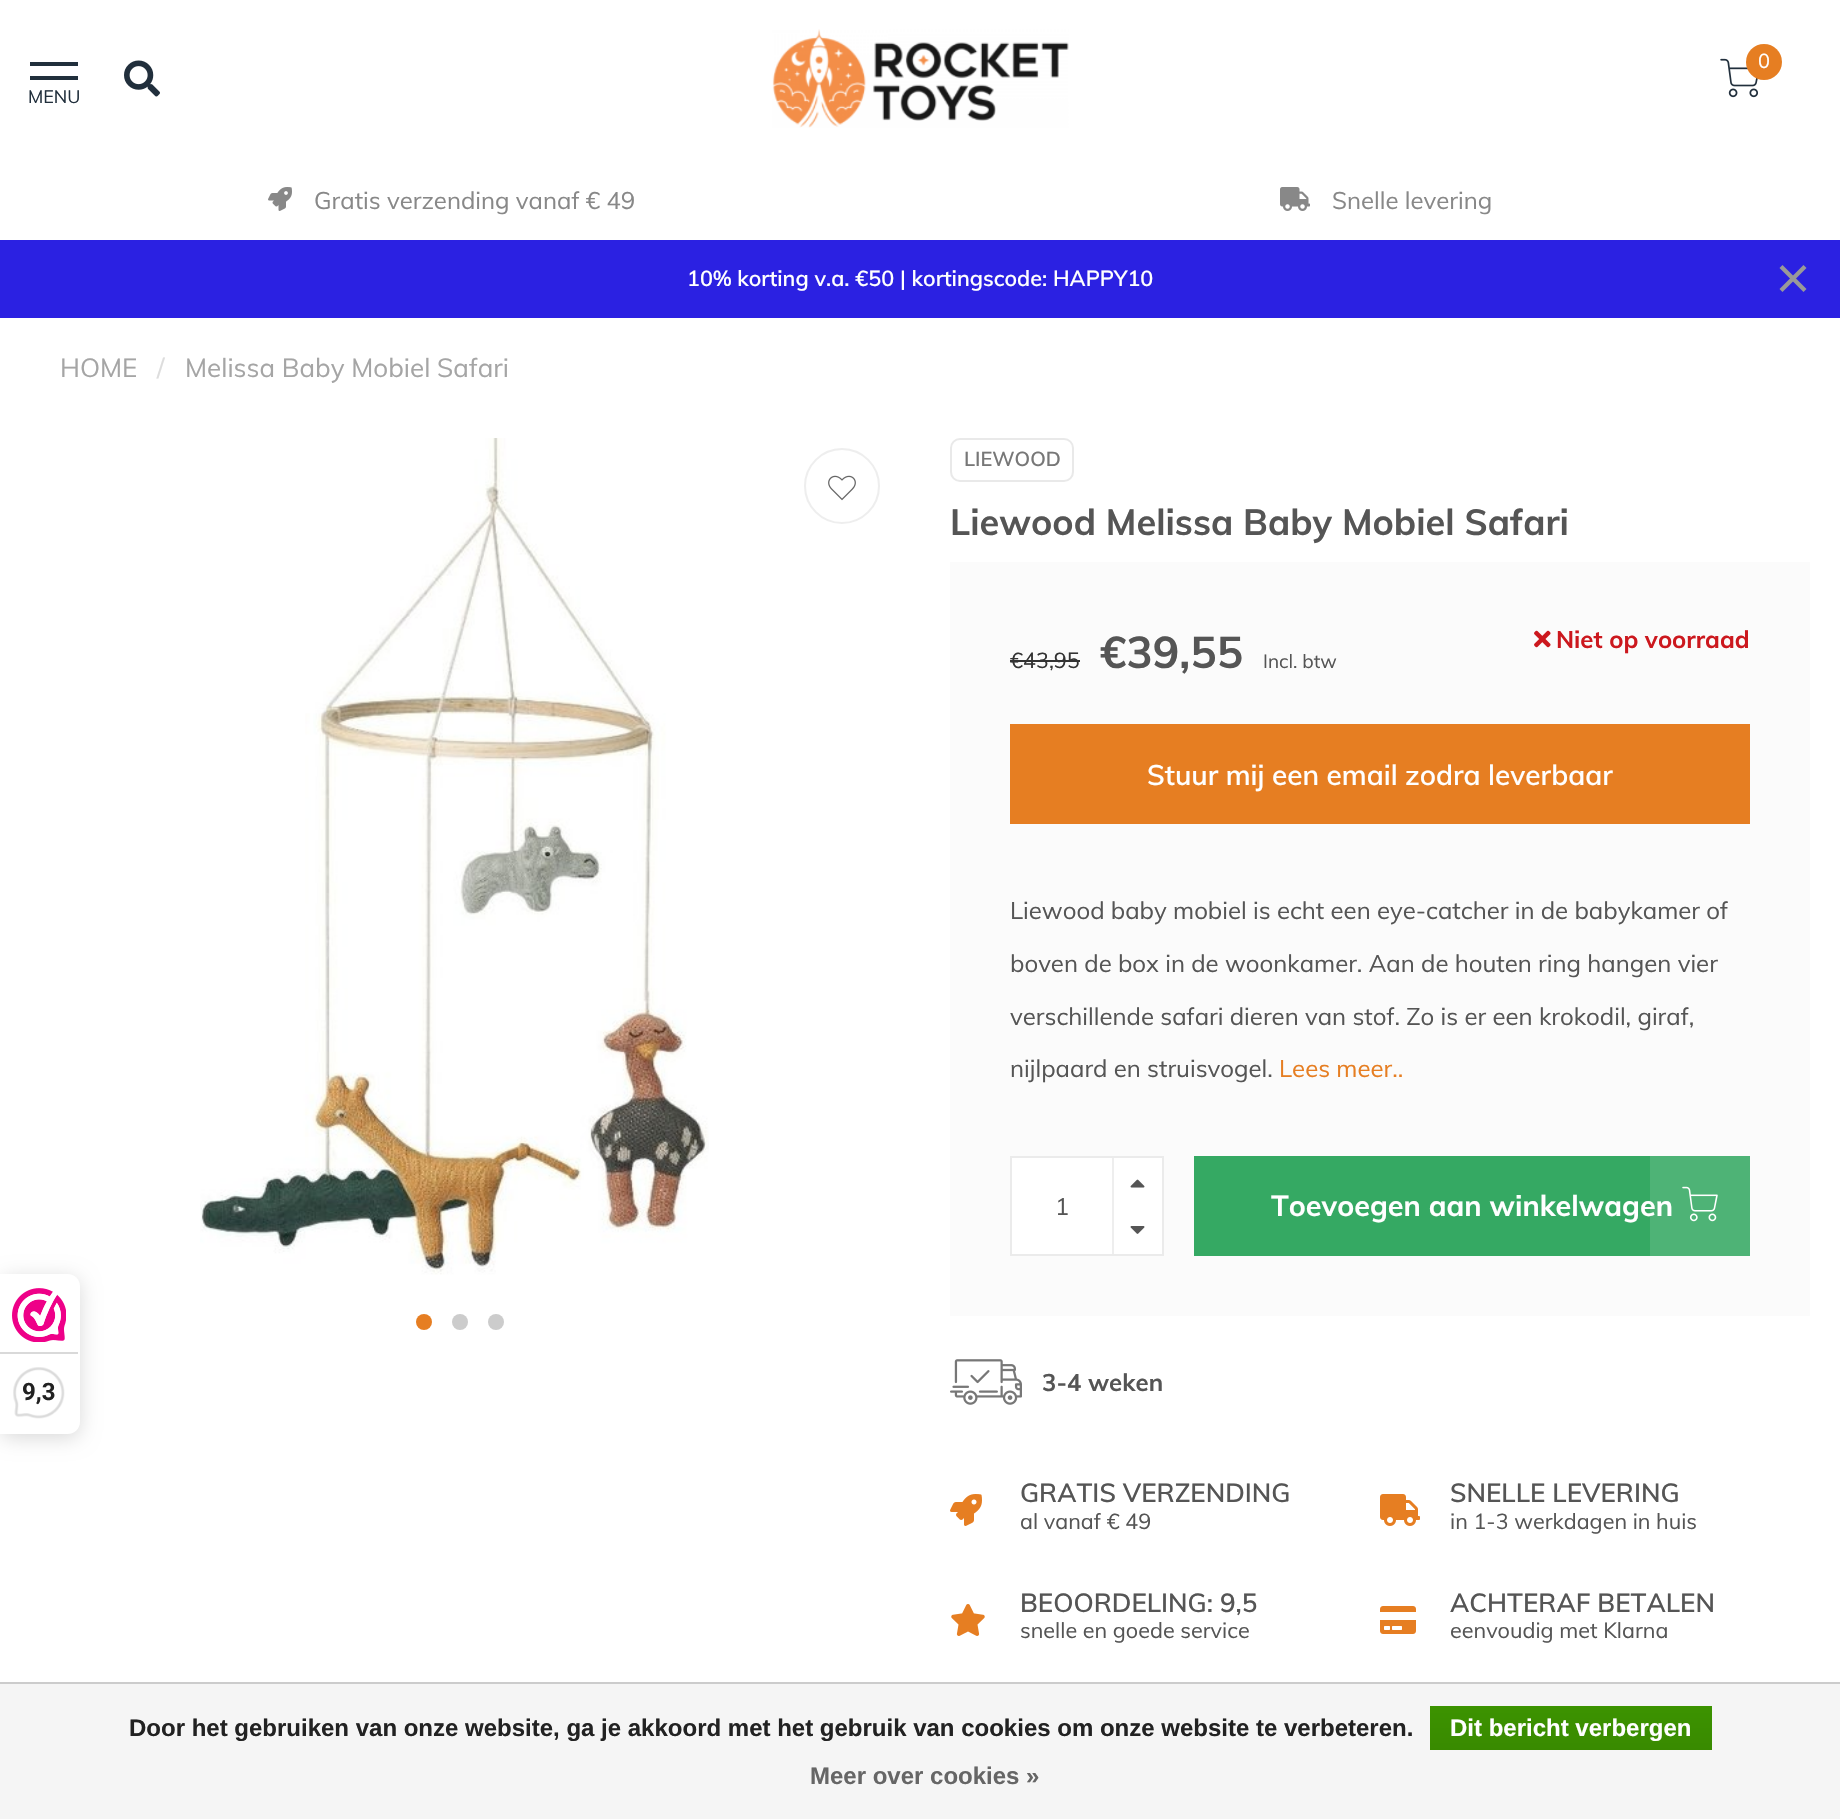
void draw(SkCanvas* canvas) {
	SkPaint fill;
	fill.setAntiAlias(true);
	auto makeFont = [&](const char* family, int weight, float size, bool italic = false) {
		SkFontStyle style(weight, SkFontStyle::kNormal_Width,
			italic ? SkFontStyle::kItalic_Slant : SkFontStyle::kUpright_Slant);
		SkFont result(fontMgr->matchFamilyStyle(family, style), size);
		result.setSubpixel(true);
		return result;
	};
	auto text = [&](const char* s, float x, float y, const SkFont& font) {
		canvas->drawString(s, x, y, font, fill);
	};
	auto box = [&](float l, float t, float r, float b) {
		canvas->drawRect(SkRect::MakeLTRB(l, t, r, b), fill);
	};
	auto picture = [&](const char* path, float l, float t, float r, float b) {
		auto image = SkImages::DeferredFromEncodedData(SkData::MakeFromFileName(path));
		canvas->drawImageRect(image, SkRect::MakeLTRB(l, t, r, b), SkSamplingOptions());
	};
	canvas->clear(0xFFFFFFFF);
	picture("image0.png", 772, 29, 1069, 128);
	picture("image1.png", 1720, 58, 1758, 98);
	fill.setColor(0xFFE67E22);
	canvas->drawCircle(1764, 62, 18, fill);
	fill.setColor(0xFF212F3C);
	box(30, 62, 78, 66);
	box(30, 76, 78, 80);
	picture("image2.png", 124, 60, 160, 97);
	picture("image3.png", 268, 187, 292, 211);
	picture("image4.png", 1280, 187, 1310, 211);
	fill.setColor(0xFF2B21E2);
	box(0, 240, 1840, 318);
	fill.setColor(0xFF999999);
	canvas->drawPath(SkPathBuilder().moveTo(1782.5f, 265).lineTo(1806.5f, 289).lineTo(1803.5f, 292).lineTo(1779.5f, 268).close().detach(), fill);
	canvas->drawPath(SkPathBuilder().moveTo(1779.5f, 289).lineTo(1803.5f, 265).lineTo(1806.5f, 268).lineTo(1782.5f, 292).close().detach(), fill);
	picture("image5.png", 200, 438, 709, 1275);
	fill.setStyle(SkPaint::kStroke_Style);
	fill.setStrokeWidth(2);
	fill.setColor(0xFFEEEEEE);
	canvas->drawCircle(842, 486, 37, fill);
	picture("image6.png", 828, 475, 856, 501);
	fill.setStyle(SkPaint::kFill_Style);
	fill.setColor(0xFFE67E22);
	canvas->drawCircle(424, 1322, 8, fill);
	fill.setColor(0xFFCCCCCC);
	canvas->drawCircle(460, 1322, 8, fill);
	canvas->drawCircle(496, 1322, 8, fill);
	fill.setStyle(SkPaint::kStroke_Style);
	fill.setColor(0xFFE9E9E9);
	canvas->drawRoundRect(SkRect::MakeLTRB(951, 439, 1073, 481), 9, 9, fill);
	fill.setStyle(SkPaint::kFill_Style);
	fill.setColor(0xFFFBFBFB);
	box(950, 562, 1810, 1316);
	fill.setColor(0xFF333333);
	box(1010, 660, 1080, 662);
	picture("image7.png", 1534, 630, 1551, 648);
	fill.setColor(0xFFE67E22);
	box(1010, 724, 1750, 824);
	fill.setStyle(SkPaint::kStroke_Style);
	fill.setColor(0xFFEBEBEB);
	canvas->drawRect(SkRect::MakeLTRB(1011, 1157, 1163, 1255), fill);
	fill.setStyle(SkPaint::kFill_Style);
	fill.setColor(0xFFFFFFFF);
	box(1012, 1158, 1162, 1254);
	fill.setColor(0x2B9B9B9B);
	canvas->drawPath(SkPathBuilder().moveTo(1112, 1208).lineTo(1112, 1158).lineTo(1114, 1158).lineTo(1114, 1206).close().detach(), fill);
	picture("image8.png", 1130, 1179, 1145, 1188);
	fill.setColor(0xFFEEEEEE);
	box(1112, 1204, 1114, 1254);
	picture("image9.png", 1130, 1226, 1145, 1234);
	fill.setColor(0xFF35A963);
	box(1194, 1156, 1750, 1256);
	fill.setColor(0x1FFFFFFF);
	box(1650, 1156, 1750, 1256);
	picture("image10.png", 1682, 1186, 1718, 1222);
	picture("image11.png", 950, 1359, 1022, 1405);
	picture("image12.png", 950, 1494, 982, 1526);
	picture("image13.png", 1380, 1494, 1420, 1526);
	picture("image14.png", 951, 1604, 985, 1636);
	picture("image15.png", 1380, 1606, 1416, 1634);
	fill.setColor(0xFFF5F5F5);
	box(0, 1684, 1840, 1819);
	fill.setColor(0xFFCCCCCC);
	box(0, 1682, 1840, 1684);
	{
		const SkColor colors[] = {0xFF3C9300, 0xFF398A00};
		const float stops[] = {0, 1};
		const SkPoint ends[] = {{1571, 1706}, {1571, 1750}};
		fill.setShader(SkGradientShader::MakeLinear(ends, colors, stops, 2, SkTileMode::kClamp));
		fill.setAlpha(255);
	}
	box(1430, 1706, 1712, 1750);
	fill.setShader(nullptr);
	fill.setColor(0x26000000);
	fill.setMaskFilter(SkMaskFilter::MakeBlur(kNormal_SkBlurStyle, 10));
	canvas->drawRoundRect(SkRect::MakeLTRB(0, 1278, 80, 1438), 12, 12, fill);
	fill.setMaskFilter(nullptr);
	fill.setColor(0xFFFFFFFF);
	canvas->drawPath(SkPathBuilder().moveTo(0, 1274).lineTo(68, 1274).cubicTo(74.5f, 1274, 80, 1279.5f, 80, 1286).lineTo(80, 1422).cubicTo(80, 1428.5f, 74.5f, 1434, 68, 1434).lineTo(0, 1434).close().detach(), fill);
	picture("image16.png", 12, 1288, 66, 1342);
	fill.setColor(0xFFD9D9D9);
	box(0, 1352, 78, 1354);
	picture("image17.png", 13, 1367, 65, 1419);
	auto font1 = makeFont("Muli", 400, 20);
	fill.setColor(0xFFFFFFFF);
	text("0", 1758, 68, font1);
	auto font2 = makeFont("Muli", 400, 18);
	fill.setColor(0xFF212F3C);
	text("MENU", 28, 103, font2);
	auto font3 = makeFont("Muli", 400, 24);
	fill.setColor(0xFF888888);
	text("Gratis verzending vanaf € 49", 314, 209, font3);
	text("Snelle levering", 1332, 209, font3);
	auto font4 = makeFont("Muli", 600, 21.6f);
	fill.setColor(0xFFFFFFFF);
	text("10% korting v.a. €50 | kortingscode: HAPPY10", 687, 286, font4);
	auto font5 = makeFont("Muli", 400, 26);
	fill.setColor(0xFFA5A5A5);
	text("HOME", 60, 377, font5);
	fill.setColor(0xFFDDDDDD);
	text("/", 157, 377, font5);
	fill.setColor(0xFFA5A5A5);
	text("Melissa Baby Mobiel Safari", 185, 377, font5);
	auto font6 = makeFont("Muli", 600, 20);
	fill.setColor(0xFF777777);
	text("LIEWOOD", 964, 466, font6);
	auto font7 = makeFont("Muli", 700, 36);
	fill.setColor(0xFF555555);
	text("Liewood Melissa Baby Mobiel Safari", 950, 535, font7);
	auto font8 = makeFont("Muli", 400, 21.6f);
	fill.setColor(0xFF333333);
	text("€43,95", 1010, 668, font8);
	auto font9 = makeFont("Muli", 700, 44);
	fill.setColor(0xFF555555);
	text("€39,55", 1100, 668, font9);
	auto font10 = makeFont("Muli", 400, 19);
	text("Incl. btw", 1263, 668, font10);
	auto font11 = makeFont("Muli", 700, 24);
	fill.setColor(0xFFCC181E);
	text("Niet op voorraad", 1556, 648, font11);
	auto font12 = makeFont("Muli", 600, 28);
	fill.setColor(0xFFFFFFFF);
	text("Stuur mij een email zodra leverbaar", 1147, 785, font12);
	fill.setColor(0xFF555555);
	text("Liewood baby mobiel is echt een eye-catcher in de babykamer of", 1010, 919, font3);
	text("boven de box in de woonkamer. Aan de houten ring hangen vier", 1010, 972, font3);
	text("verschillende safari dieren van stof. Zo is er een krokodil, giraf,", 1010, 1025, font3);
	text("nijlpaard en struisvogel.", 1010, 1077, font3);
	fill.setColor(0xFFE67E22);
	text("Lees meer..", 1279, 1077, font3);
	fill.setColor(0xFF555555);
	text("1", 1055, 1215, font3);
	auto font13 = makeFont("Muli", 700, 28.75f);
	fill.setColor(0xFFFFFFFF);
	text("Toevoegen aan winkelwagen", 1271, 1216, font13);
	fill.setColor(0xFF555555);
	text("3-4 weken", 1042, 1391, font11);
	auto font14 = makeFont("Muli", 600, 26);
	text("GRATIS VERZENDING", 1020, 1502, font14);
	text("al vanaf € 49", 1020, 1529, font8);
	text("SNELLE LEVERING", 1450, 1502, font14);
	text("in 1-3 werkdagen in huis", 1450, 1529, font8);
	text("BEOORDELING: 9,5", 1020, 1612, font14);
	text("snelle en goede service", 1020, 1638, font8);
	text("ACHTERAF BETALEN", 1450, 1612, font14);
	text("eenvoudig met Klarna", 1450, 1638, font8);
	auto font15 = makeFont("Liberation Sans", 700, 24);
	fill.setColor(0xFF222222);
	text("Door het gebruiken van onze website, ga je akkoord met het gebruik van cookies om onze website te verbeteren.", 129, 1736, font15);
	fill.setColor(0xFFFFFFFF);
	text("Dit bericht verbergen", 1450, 1736, font15);
	fill.setColor(0xFF666666);
	text("Meer over cookies »", 810, 1784, font15);
	auto font16 = makeFont("Roboto", 700, 24);
	fill.setColor(0xFF222222);
	text("9,3", 22, 1400, font16);
}
